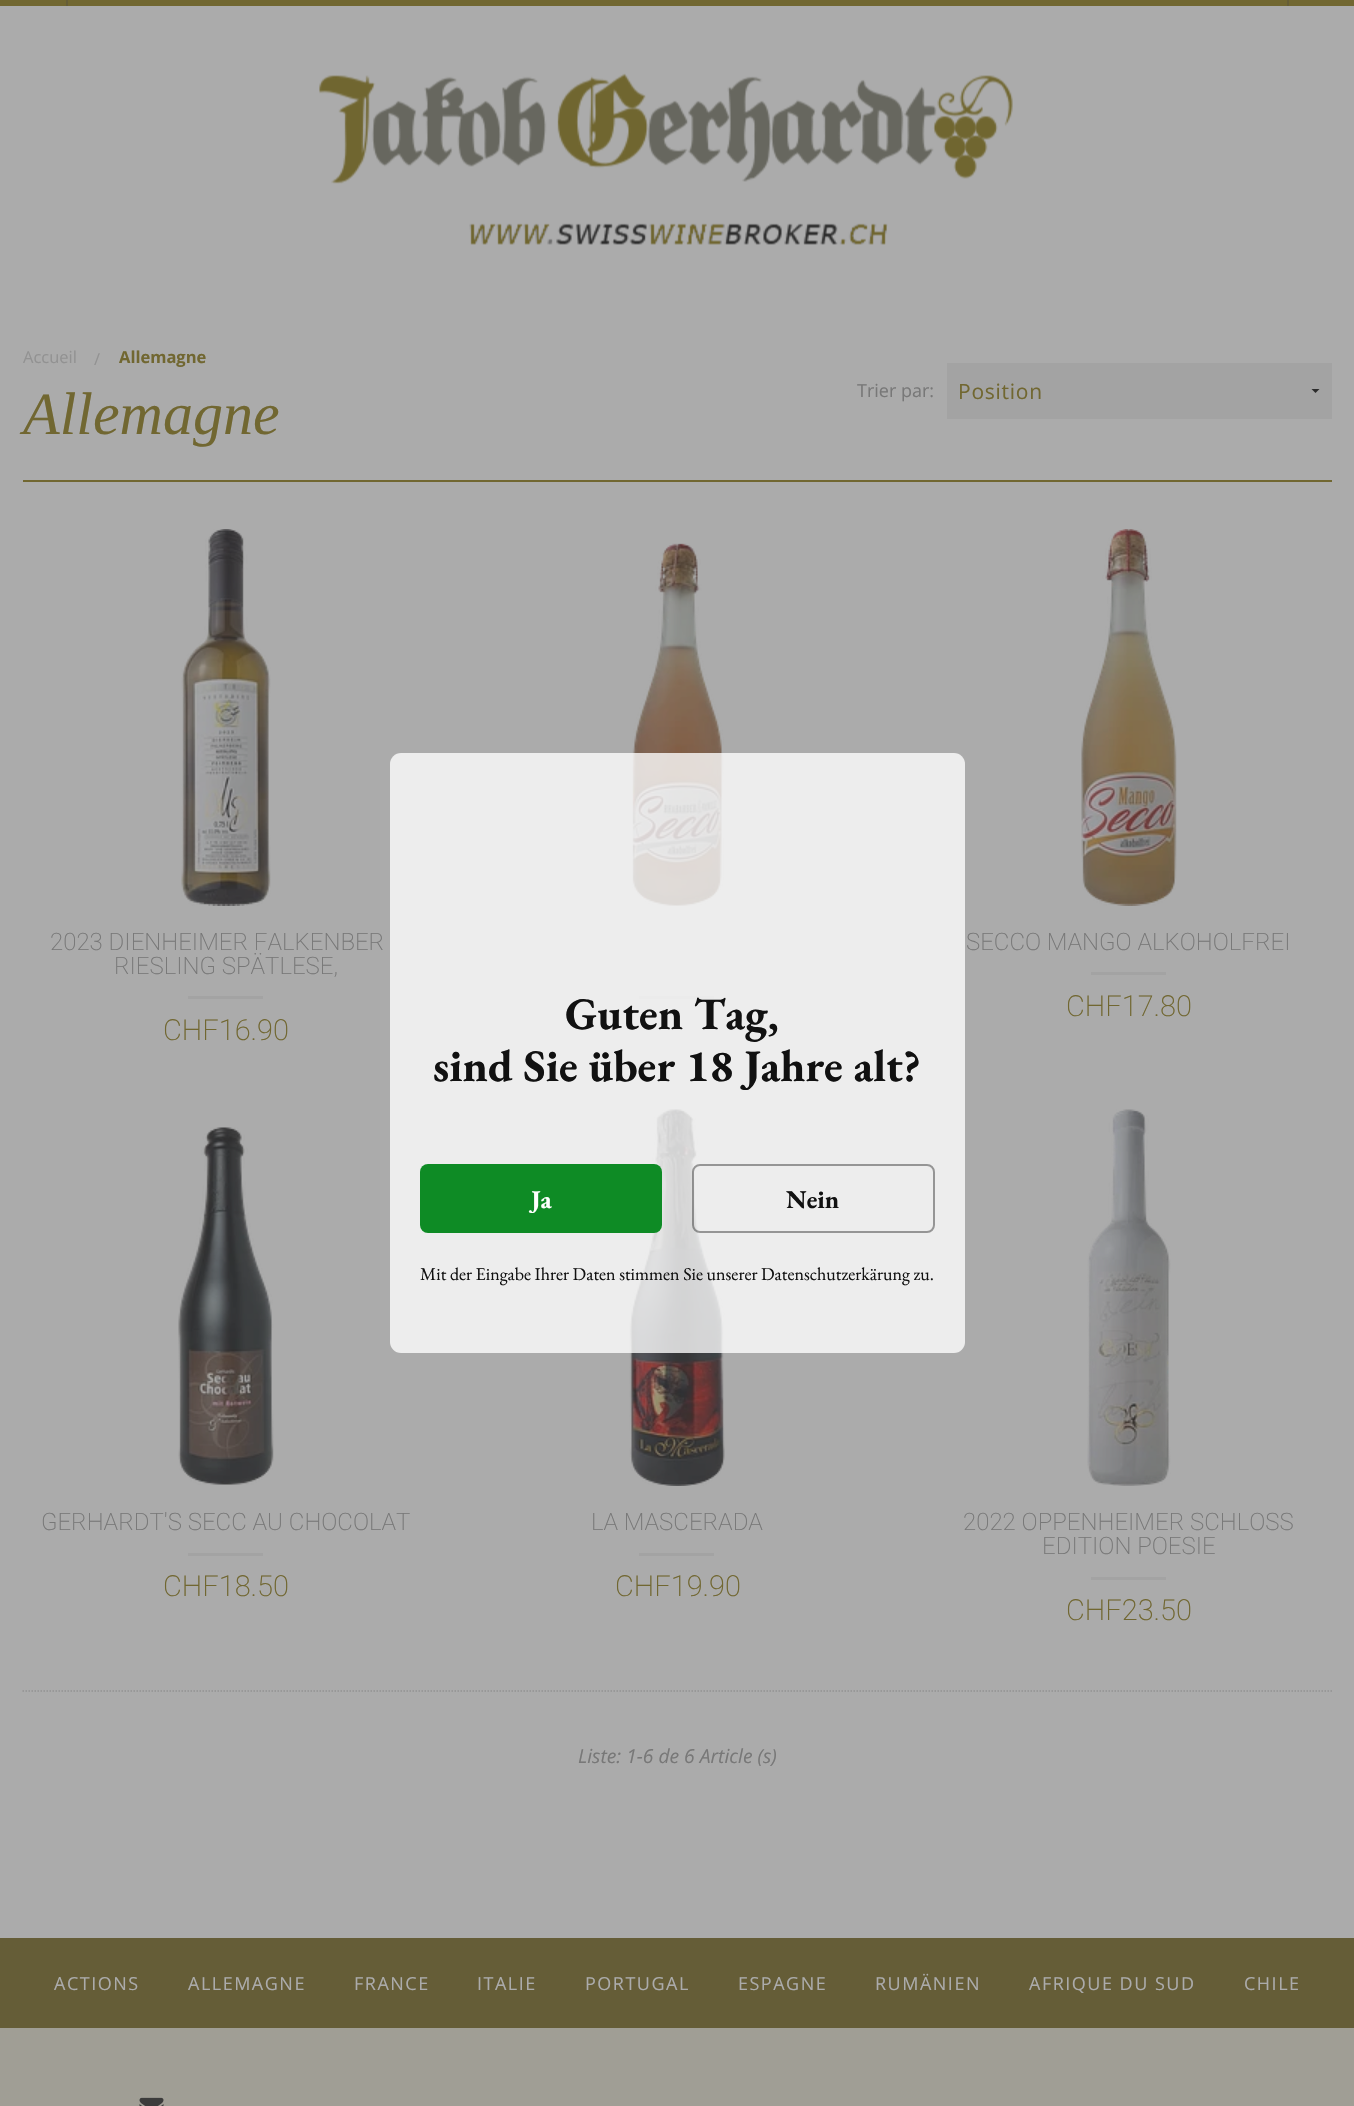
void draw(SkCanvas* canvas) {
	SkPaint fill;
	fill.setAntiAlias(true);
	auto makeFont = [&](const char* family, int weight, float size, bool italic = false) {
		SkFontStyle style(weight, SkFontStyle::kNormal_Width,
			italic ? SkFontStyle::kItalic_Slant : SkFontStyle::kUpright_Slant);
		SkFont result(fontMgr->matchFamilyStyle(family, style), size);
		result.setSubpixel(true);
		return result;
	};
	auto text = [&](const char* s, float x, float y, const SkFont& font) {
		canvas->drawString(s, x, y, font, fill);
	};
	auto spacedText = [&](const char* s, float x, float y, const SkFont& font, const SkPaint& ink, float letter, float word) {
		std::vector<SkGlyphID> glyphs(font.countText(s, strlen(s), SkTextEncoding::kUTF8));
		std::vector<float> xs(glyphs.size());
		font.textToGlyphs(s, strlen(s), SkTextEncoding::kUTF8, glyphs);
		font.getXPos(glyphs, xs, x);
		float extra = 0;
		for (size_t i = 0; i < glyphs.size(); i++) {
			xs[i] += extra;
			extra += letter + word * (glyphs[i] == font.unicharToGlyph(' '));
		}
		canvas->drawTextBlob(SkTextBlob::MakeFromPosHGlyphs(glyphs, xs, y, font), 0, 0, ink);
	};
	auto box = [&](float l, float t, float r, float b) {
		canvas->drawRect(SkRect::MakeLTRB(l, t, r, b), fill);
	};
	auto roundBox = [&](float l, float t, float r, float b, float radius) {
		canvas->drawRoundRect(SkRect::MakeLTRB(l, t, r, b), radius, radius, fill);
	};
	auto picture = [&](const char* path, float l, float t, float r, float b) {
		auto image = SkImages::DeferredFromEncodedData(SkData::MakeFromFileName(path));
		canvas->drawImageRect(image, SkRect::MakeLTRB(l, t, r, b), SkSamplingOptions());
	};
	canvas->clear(0xFFABABAB);
	fill.setColor(0xFF716731);
	box(0, 0, 1354, 6);
	fill.setColor(0xFF655D37);
	box(66, 0, 68, 6);
	box(1287, 0, 1289, 6);
	picture("image0.png", 319, 73, 1013, 184);
	picture("image1.png", 469, 223, 888, 245);
	fill.setColor(0xFFA3A3A3);
	box(947, 363, 1332, 419);
	canvas->save();
	canvas->clipRect(SkRect::MakeLTRB(1311, 389, 1320, 394));
	fill.setColor(0xFF2C2C2C);
	canvas->drawPath(SkPathBuilder().moveTo(1320, 388.5f).lineTo(1315.5f, 393).lineTo(1311, 388.5f).close().detach(), fill);
	canvas->restore();
	fill.setColor(0xFF716731);
	box(23, 480, 1332, 482);
	picture("image2.png", 181, 529, 271, 906);
	fill.setColor(0xFFA3A3A3);
	box(188, 996, 263, 999);
	picture("image3.png", 632, 543, 724, 906);
	box(639, 996, 714, 999);
	picture("image4.png", 1081, 529, 1177, 906);
	box(1091, 972, 1166, 975);
	picture("image5.png", 178, 1127, 274, 1485);
	box(188, 1553, 263, 1556);
	picture("image6.png", 629, 1109, 725, 1486);
	box(639, 1553, 714, 1556);
	picture("image7.png", 1087, 1109, 1171, 1486);
	box(1091, 1577, 1166, 1580);
	fill.setStyle(SkPaint::kStroke_Style);
	fill.setStrokeWidth(1.5f);
	fill.setColor(0xFF929292);
	fill.setPathEffect(SkDashPathEffect::Make({{1.5f, 1.5f}}, 0));
	canvas->drawPath(SkPathBuilder().moveTo(22.5f, 1691).lineTo(1332, 1691).detach(), fill);
	fill.setPathEffect(nullptr);
	fill.setStyle(SkPaint::kFill_Style);
	fill.setColor(0xFFA09E95);
	box(0, 2028, 1354, 2106);
	fill.setColor(0xFF655D37);
	box(0, 1938, 1354, 2028);
	picture("image8.png", 139, 2097, 164, 2106);
	fill.setColor(0xC7FFFFFF);
	roundBox(390, 753, 965, 1353, 11);
	fill.setColor(0xFF0E8B25);
	roundBox(420, 1164, 662, 1233, 8);
	fill.setStyle(SkPaint::kStroke_Style);
	fill.setStrokeWidth(2);
	fill.setColor(0x66111111);
	canvas->drawRoundRect(SkRect::MakeLTRB(693, 1165, 934, 1232), 7, 7, fill);
	auto font1 = makeFont("Open Sans", 400, 16.5f);
	fill.setStyle(SkPaint::kFill_Style);
	fill.setColor(0xFF929292);
	text("Accueil", 23, 363, font1);
	text("/", 94, 365, font1);
	auto font2 = makeFont("Open Sans", 700, 16.5f);
	fill.setColor(0xFF716731);
	text("Allemagne", 119, 363, font2);
	auto font3 = makeFont("Liberation Serif", 400, 60, true);
	text("Allemagne", 23, 434, font3);
	auto font4 = makeFont("Open Sans", 400, 18);
	fill.setColor(0xFF787878);
	text("Trier par:", 857, 397, font4);
	auto font5 = makeFont("Open Sans", 400, 21);
	fill.setColor(0xFF716731);
	spacedText("Position", 958, 399, font5, fill, 0.75f, 0);
	auto font6 = makeFont("Roboto", 200, 24);
	fill.setColor(0xFF787878);
	text("2023 DIENHEIMER FALKENBER", 50, 950, font6);
	text("RIESLING SPÄTLESE,", 114, 974, font6);
	auto font7 = makeFont("Roboto", 200, 29);
	fill.setColor(0xFF716731);
	text("CHF16.90", 163, 1040, font7);
	fill.setColor(0xFF787878);
	text("SECCO MANGO ALKOHOLFREI", 966, 950, font6);
	fill.setColor(0xFF716731);
	text("CHF17.80", 1066, 1016, font7);
	fill.setColor(0xFF787878);
	text("GERHARDT'S SECC AU CHOCOLAT", 41, 1530, font6);
	fill.setColor(0xFF716731);
	text("CHF18.50", 163, 1596, font7);
	fill.setColor(0xFF787878);
	text("LA MASCERADA", 591, 1530, font6);
	fill.setColor(0xFF716731);
	text("CHF19.90", 615, 1596, font7);
	fill.setColor(0xFF787878);
	text("2022 OPPENHEIMER SCHLOSS", 963, 1530, font6);
	text("EDITION POESIE", 1042, 1554, font6);
	fill.setColor(0xFF716731);
	text("CHF23.50", 1066, 1620, font7);
	auto font8 = makeFont("Open Sans", 400, 19.25f, true);
	fill.setColor(0xFF787878);
	text("Liste: 1-6 de 6 Article (s)", 578, 1763, font8);
	fill.setColor(0xFFABABAB);
	spacedText("ACTIONS", 54, 1990, font4, fill, 1.5f, 0);
	spacedText("ALLEMAGNE", 188, 1990, font4, fill, 1.5f, 0);
	spacedText("FRANCE", 354, 1990, font4, fill, 1.5f, 0);
	spacedText("ITALIE", 477, 1990, font4, fill, 1.5f, 0);
	spacedText("PORTUGAL", 585, 1990, font4, fill, 1.5f, 0);
	spacedText("ESPAGNE", 738, 1990, font4, fill, 1.5f, 0);
	spacedText("RUMÄNIEN", 875, 1990, font4, fill, 1.5f, 0);
	spacedText("AFRIQUE DU SUD", 1029, 1990, font4, fill, 1.5f, 0);
	spacedText("CHILE", 1244, 1990, font4, fill, 1.5f, 0);
	auto font9 = makeFont("EB Garamond", 700, 45);
	fill.setColor(0xFF111111);
	text("Guten Tag,", 565, 1029, font9);
	text("sind Sie über 18 Jahre alt?", 433, 1081, font9);
	auto font10 = makeFont("EB Garamond", 700, 25.5f);
	fill.setColor(0xFFFFFFFF);
	text("Ja", 531, 1208, font10);
	fill.setColor(0xFF111111);
	text("Nein", 786, 1208, font10);
	auto font11 = makeFont("EB Garamond", 400, 18);
	text("Mit der Eingabe Ihrer Daten stimmen Sie unserer Datenschutzerkärung zu.", 420, 1280, font11);
}
